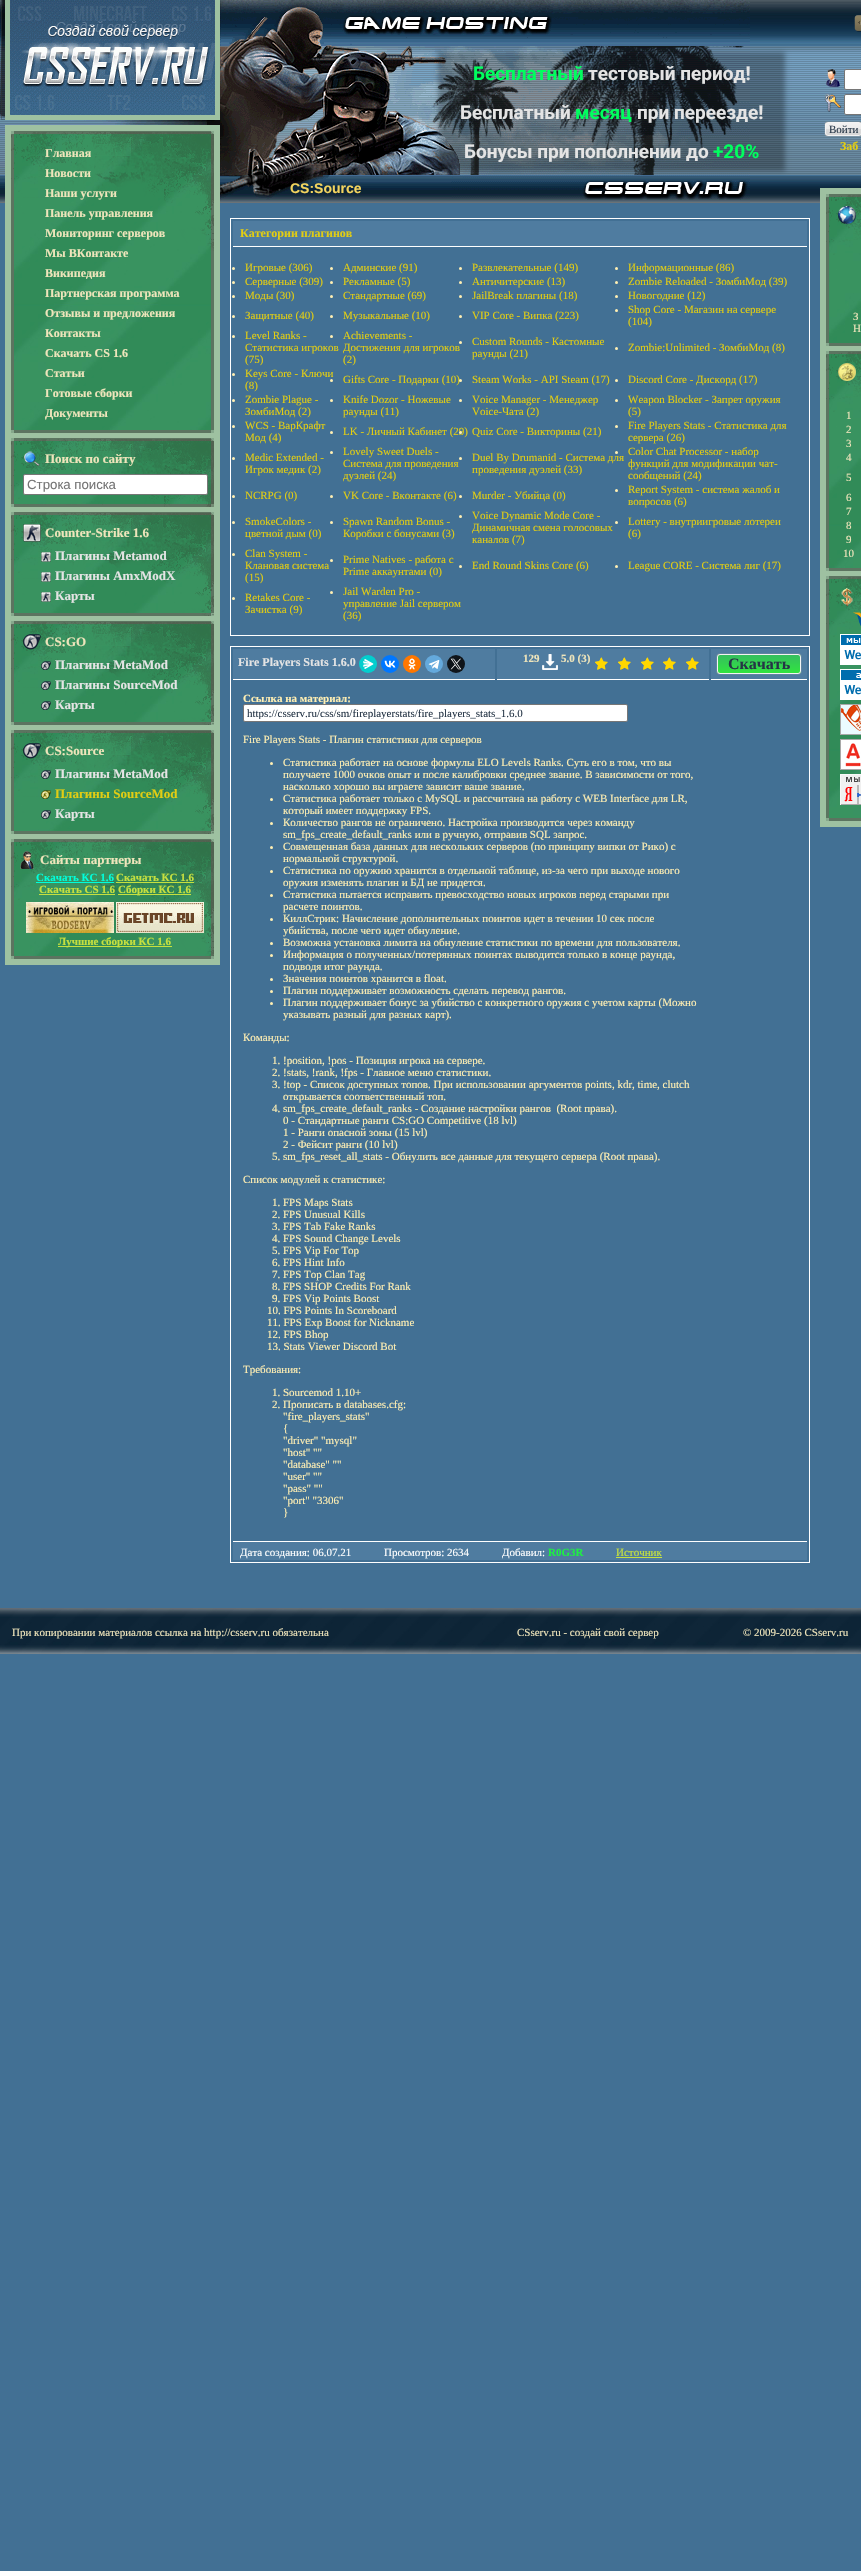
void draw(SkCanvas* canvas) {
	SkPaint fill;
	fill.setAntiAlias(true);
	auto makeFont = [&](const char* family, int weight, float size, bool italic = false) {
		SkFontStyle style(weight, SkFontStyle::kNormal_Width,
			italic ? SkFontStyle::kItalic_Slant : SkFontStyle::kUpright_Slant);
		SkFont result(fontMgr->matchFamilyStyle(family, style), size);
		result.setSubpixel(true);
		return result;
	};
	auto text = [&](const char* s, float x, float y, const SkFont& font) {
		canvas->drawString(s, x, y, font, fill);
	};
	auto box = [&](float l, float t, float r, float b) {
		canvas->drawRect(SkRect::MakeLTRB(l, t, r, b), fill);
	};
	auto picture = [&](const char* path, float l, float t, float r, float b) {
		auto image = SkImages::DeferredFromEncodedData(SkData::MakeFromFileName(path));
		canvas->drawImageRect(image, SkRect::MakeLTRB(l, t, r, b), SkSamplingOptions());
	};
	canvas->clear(0xFF427094);
	picture("image23.png", 0, 0, 750, 203);
	fill.setColor(0xFF9EC1A1);
	box(5, 0, 220, 120);
	picture("image0.png", 10, 0, 215, 115);
	box(5, 125, 220, 965);
	picture("image1.png", 14, 134, 211, 430);
	fill.setColor(0xFF5C7460);
	box(11, 131, 214, 134);
	box(211, 131, 214, 433);
	box(11, 430, 214, 433);
	box(11, 131, 14, 433);
	fill.setColor(0xFF86A88C);
	box(11, 131, 14, 134);
	box(211, 131, 214, 134);
	box(211, 430, 214, 433);
	box(11, 430, 14, 433);
	picture("image2.png", 11, 132, 214, 251);
	picture("image3.png", 14, 441, 211, 504);
	fill.setColor(0xFF5C7460);
	box(11, 438, 214, 441);
	box(211, 438, 214, 507);
	box(11, 504, 214, 507);
	box(11, 438, 14, 507);
	fill.setColor(0xFF86A88C);
	box(11, 438, 14, 441);
	box(211, 438, 214, 441);
	box(211, 504, 214, 507);
	box(11, 504, 14, 507);
	picture("image4.png", 11, 439, 214, 507);
	picture("image5.png", 24, 451, 40, 468);
	fill.setColor(0xFFFFFFFF);
	canvas->drawRoundRect(SkRect::MakeLTRB(23.5f, 474.5f, 207.5f, 494.5f), 1.5f, 1.5f, fill);
	fill.setStyle(SkPaint::kStroke_Style);
	fill.setStrokeWidth(1);
	fill.setColor(0xFF767676);
	canvas->drawRoundRect(SkRect::MakeLTRB(23.5f, 474.5f, 207.5f, 494.5f), 1.5f, 1.5f, fill);
	picture("image6.png", 14, 515, 211, 613);
	fill.setStyle(SkPaint::kFill_Style);
	fill.setColor(0xFF5C7460);
	box(11, 512, 214, 515);
	box(211, 512, 214, 616);
	box(11, 613, 214, 616);
	box(11, 512, 14, 616);
	fill.setColor(0xFF86A88C);
	box(11, 512, 14, 515);
	box(211, 512, 214, 515);
	box(211, 613, 214, 616);
	box(11, 613, 14, 616);
	picture("image7.png", 11, 513, 214, 616);
	picture("image8.png", 23, 524, 41, 542);
	picture("image9.png", 41, 552, 51, 562);
	picture("image10.png", 41, 572, 51, 582);
	picture("image11.png", 41, 592, 51, 602);
	picture("image6.png", 14, 624, 211, 722);
	fill.setColor(0xFF5C7460);
	box(11, 621, 214, 624);
	box(211, 621, 214, 725);
	box(11, 722, 214, 725);
	box(11, 621, 14, 725);
	fill.setColor(0xFF86A88C);
	box(11, 621, 14, 624);
	box(211, 621, 214, 624);
	box(211, 722, 214, 725);
	box(11, 722, 14, 725);
	picture("image7.png", 11, 622, 214, 725);
	picture("image12.png", 23, 634, 41, 650);
	picture("image13.png", 41, 661, 51, 670);
	picture("image14.png", 41, 681, 51, 690);
	picture("image15.png", 41, 701, 51, 710);
	picture("image6.png", 14, 733, 211, 831);
	fill.setColor(0xFF5C7460);
	box(11, 730, 214, 733);
	box(211, 730, 214, 834);
	box(11, 831, 214, 834);
	box(11, 730, 14, 834);
	fill.setColor(0xFF86A88C);
	box(11, 730, 14, 733);
	box(211, 730, 214, 733);
	box(211, 831, 214, 834);
	box(11, 831, 14, 834);
	picture("image7.png", 11, 731, 214, 834);
	picture("image12.png", 23, 743, 41, 759);
	picture("image13.png", 41, 770, 51, 779);
	picture("image16.png", 41, 790, 51, 799);
	picture("image15.png", 41, 810, 51, 819);
	picture("image17.png", 14, 842, 211, 956);
	fill.setColor(0xFF5C7460);
	box(11, 839, 214, 842);
	box(211, 839, 214, 959);
	box(11, 956, 214, 959);
	box(11, 839, 14, 959);
	fill.setColor(0xFF86A88C);
	box(11, 839, 14, 842);
	box(211, 839, 214, 842);
	box(211, 956, 214, 959);
	box(11, 956, 14, 959);
	picture("image18.png", 11, 840, 214, 959);
	picture("image19.png", 20, 851, 34, 869);
	fill.setColor(0xFF00FFDC);
	box(36, 882, 114, 883);
	fill.setColor(0xFFC6E03F);
	box(116, 882, 194, 883);
	box(39, 894, 115, 895);
	box(118, 894, 191, 895);
	picture("image20.png", 26, 902, 114, 933);
	picture("image21.png", 116, 902, 204, 933);
	box(58, 946, 172, 947);
	picture("image22.png", 750, 0, 861, 203);
	canvas->save();
	canvas->clipPath(SkPathBuilder(SkPathFillType::kEvenOdd).moveTo(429, 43).lineTo(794, 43).lineTo(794, 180).lineTo(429, 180).close().moveTo(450, 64).lineTo(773, 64).lineTo(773, 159).lineTo(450, 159).close().detach(), true);
	fill.setColor(0x4D000000);
	fill.setMaskFilter(SkMaskFilter::MakeBlur(kNormal_SkBlurStyle, 2.5f));
	canvas->drawRect(SkRect::MakeLTRB(438, 52, 785, 171), fill);
	fill.setMaskFilter(nullptr);
	canvas->restore();
	box(450, 64, 773, 159);
	picture("image24.png", 854, 15, 861, 32);
	picture("image25.png", 826, 69, 840, 87);
	fill.setColor(0xFFFFFFFF);
	canvas->drawRoundRect(SkRect::MakeLTRB(844.5f, 69.5f, 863.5f, 89.5f), 1.5f, 1.5f, fill);
	fill.setStyle(SkPaint::kStroke_Style);
	fill.setColor(0xFF767676);
	canvas->drawRoundRect(SkRect::MakeLTRB(844.5f, 69.5f, 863.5f, 89.5f), 1.5f, 1.5f, fill);
	picture("image26.png", 824, 94, 842, 112);
	fill.setStyle(SkPaint::kFill_Style);
	fill.setColor(0xFFFFFFFF);
	canvas->drawRoundRect(SkRect::MakeLTRB(844.5f, 94.5f, 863.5f, 114.5f), 1.5f, 1.5f, fill);
	fill.setStyle(SkPaint::kStroke_Style);
	fill.setColor(0xFF767676);
	canvas->drawRoundRect(SkRect::MakeLTRB(844.5f, 94.5f, 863.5f, 114.5f), 1.5f, 1.5f, fill);
	fill.setStyle(SkPaint::kFill_Style);
	fill.setColor(0xFFEEEEEE);
	fill.setMaskFilter(SkMaskFilter::MakeBlur(kNormal_SkBlurStyle, 0.5f));
	canvas->drawRoundRect(SkRect::MakeLTRB(825, 122, 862, 136), 3, 3, fill);
	fill.setMaskFilter(nullptr);
	fill.setColor(0xFF707070);
	fill.setMaskFilter(SkMaskFilter::MakeBlur(kNormal_SkBlurStyle, 0.5f));
	canvas->drawRoundRect(SkRect::MakeLTRB(825, 122, 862, 136), 3, 3, fill);
	fill.setMaskFilter(nullptr);
	canvas->save();
	canvas->clipPath(SkPathBuilder().moveTo(828, 122).lineTo(859, 122).cubicTo(860.5f, 122, 862, 123.5f, 862, 125).lineTo(862, 133).cubicTo(862, 134.5f, 860.5f, 136, 859, 136).lineTo(828, 136).cubicTo(826.5f, 136, 825, 134.5f, 825, 133).lineTo(825, 125).cubicTo(825, 123.5f, 826.5f, 122, 828, 122).close().detach(), true);
	{
		const SkColor colors[] = {0xFFF2F2F2, 0xFFEBEBEB, 0xFFDBDBDB, 0xFFD6D6D6};
		const float stops[] = {0, 0.5f, 0.51f, 1};
		const SkPoint ends[] = {{844, 123}, {844, 135}};
		fill.setShader(SkGradientShader::MakeLinear(ends, colors, stops, 4, SkTileMode::kClamp));
		fill.setAlpha(255);
	}
	box(825, 123, 861, 135);
	canvas->restore();
	fill.setStyle(SkPaint::kStroke_Style);
	fill.setShader(nullptr);
	fill.setColor(0xFFF3F3F3);
	canvas->drawRoundRect(SkRect::MakeLTRB(825.5f, 122.5f, 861.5f, 135.5f), 2.5f, 2.5f, fill);
	fill.setStyle(SkPaint::kFill_Style);
	fill.setColor(0xFF9EC1A1);
	box(820, 188, 861, 827);
	picture("image27.png", 829, 197, 861, 343);
	fill.setColor(0xFF5C7460);
	box(826, 194, 861, 197);
	box(826, 343, 861, 346);
	box(826, 194, 829, 346);
	fill.setColor(0xFF86A88C);
	box(826, 194, 829, 197);
	box(826, 343, 829, 346);
	picture("image28.png", 826, 195, 861, 255);
	picture("image29.png", 838, 206, 856, 224);
	picture("image30.png", 829, 354, 861, 568);
	fill.setColor(0xFF5C7460);
	box(826, 351, 861, 354);
	box(826, 568, 861, 571);
	box(826, 351, 829, 571);
	fill.setColor(0xFF86A88C);
	box(826, 351, 829, 354);
	box(826, 568, 829, 571);
	picture("image28.png", 826, 352, 861, 412);
	picture("image31.png", 838, 363, 856, 381);
	picture("image32.png", 829, 579, 861, 818);
	fill.setColor(0xFF5C7460);
	box(826, 576, 861, 579);
	box(826, 818, 861, 821);
	box(826, 576, 829, 821);
	fill.setColor(0xFF86A88C);
	box(826, 576, 829, 579);
	box(826, 818, 829, 821);
	picture("image28.png", 826, 577, 861, 637);
	picture("image33.png", 841, 588, 853, 606);
	picture("image34.png", 853, 612, 861, 626);
	picture("image35.png", 840, 634, 861, 665);
	picture("image36.png", 840, 669, 861, 700);
	picture("image37.png", 840, 704, 861, 735);
	picture("image38.png", 840, 739, 861, 770);
	picture("image39.png", 840, 774, 861, 805);
	fill.setStyle(SkPaint::kStroke_Style);
	fill.setColor(0xFFFFFFFF);
	canvas->drawRect(SkRect::MakeLTRB(230.5f, 218.5f, 809.5f, 635.5f), fill);
	fill.setStyle(SkPaint::kFill_Style);
	fill.setColor(0xFF4F7CA0);
	box(233, 221, 807, 246);
	fill.setColor(0xFFFFFFFF);
	box(233, 246, 807, 247);
	fill.setColor(0xFFFFEFB3);
	canvas->drawCircle(233.5f, 268.5f, 1.5f, fill);
	canvas->drawCircle(331.5f, 268.5f, 1.5f, fill);
	canvas->drawCircle(460.5f, 268.5f, 1.5f, fill);
	canvas->drawCircle(616.5f, 268.5f, 1.5f, fill);
	canvas->drawCircle(233.5f, 282.5f, 1.5f, fill);
	canvas->drawCircle(331.5f, 282.5f, 1.5f, fill);
	canvas->drawCircle(460.5f, 282.5f, 1.5f, fill);
	canvas->drawCircle(616.5f, 282.5f, 1.5f, fill);
	canvas->drawCircle(233.5f, 296.5f, 1.5f, fill);
	canvas->drawCircle(331.5f, 296.5f, 1.5f, fill);
	canvas->drawCircle(460.5f, 296.5f, 1.5f, fill);
	canvas->drawCircle(616.5f, 296.5f, 1.5f, fill);
	canvas->drawCircle(233.5f, 316.5f, 1.5f, fill);
	canvas->drawCircle(331.5f, 316.5f, 1.5f, fill);
	canvas->drawCircle(460.5f, 316.5f, 1.5f, fill);
	canvas->drawCircle(616.5f, 310.5f, 1.5f, fill);
	canvas->drawCircle(233.5f, 336.5f, 1.5f, fill);
	canvas->drawCircle(331.5f, 336.5f, 1.5f, fill);
	canvas->drawCircle(616.5f, 348.5f, 1.5f, fill);
	canvas->drawCircle(233.5f, 374.5f, 1.5f, fill);
	canvas->drawCircle(616.5f, 380.5f, 1.5f, fill);
	canvas->drawCircle(233.5f, 400.5f, 1.5f, fill);
	canvas->drawCircle(331.5f, 400.5f, 1.5f, fill);
	canvas->drawCircle(460.5f, 400.5f, 1.5f, fill);
	canvas->drawCircle(616.5f, 400.5f, 1.5f, fill);
	canvas->drawCircle(233.5f, 426.5f, 1.5f, fill);
	canvas->drawCircle(331.5f, 432.5f, 1.5f, fill);
	canvas->drawCircle(616.5f, 426.5f, 1.5f, fill);
	canvas->drawCircle(233.5f, 458.5f, 1.5f, fill);
	canvas->drawCircle(331.5f, 452.5f, 1.5f, fill);
	canvas->drawCircle(460.5f, 458.5f, 1.5f, fill);
	canvas->drawCircle(233.5f, 496.5f, 1.5f, fill);
	canvas->drawCircle(331.5f, 496.5f, 1.5f, fill);
	canvas->drawCircle(460.5f, 496.5f, 1.5f, fill);
	canvas->drawCircle(616.5f, 490.5f, 1.5f, fill);
	canvas->drawCircle(233.5f, 522.5f, 1.5f, fill);
	canvas->drawCircle(331.5f, 522.5f, 1.5f, fill);
	canvas->drawCircle(460.5f, 516.5f, 1.5f, fill);
	canvas->drawCircle(616.5f, 522.5f, 1.5f, fill);
	canvas->drawCircle(233.5f, 554.5f, 1.5f, fill);
	canvas->drawCircle(331.5f, 560.5f, 1.5f, fill);
	canvas->drawCircle(460.5f, 566.5f, 1.5f, fill);
	canvas->drawCircle(616.5f, 566.5f, 1.5f, fill);
	canvas->drawCircle(233.5f, 598.5f, 1.5f, fill);
	canvas->drawCircle(331.5f, 592.5f, 1.5f, fill);
	fill.setStyle(SkPaint::kStroke_Style);
	fill.setColor(0xFFFFFFFF);
	canvas->drawRect(SkRect::MakeLTRB(230.5f, 646.5f, 809.5f, 1562.5f), fill);
	fill.setStyle(SkPaint::kFill_Style);
	fill.setColor(0xFF4F7CA0);
	box(233, 649, 495, 679);
	fill.setColor(0xFFFFFFFF);
	box(233, 679, 495, 680);
	fill.setColor(0xFF03CECE);
	canvas->drawCircle(368, 664, 9, fill);
	picture("image40.png", 363, 659, 374, 669);
	fill.setColor(0xFF0077FF);
	canvas->drawCircle(390, 664, 9, fill);
	picture("image41.png", 384, 660, 396, 668);
	fill.setColor(0xFFFF7700);
	canvas->drawCircle(412, 664, 9, fill);
	picture("image42.png", 408, 658, 416, 670);
	fill.setColor(0xFF64A9DC);
	canvas->drawCircle(434, 664, 9, fill);
	picture("image43.png", 428, 660, 440, 669);
	fill.setColor(0xFF0F1419);
	canvas->drawCircle(456, 664, 9, fill);
	picture("image44.png", 450, 658, 462, 670);
	fill.setColor(0xFF4F7CA0);
	box(497, 649, 709, 679);
	fill.setColor(0xFFFFFFFF);
	box(497, 679, 709, 680);
	picture("image45.png", 542, 654, 558, 670);
	picture("image46.png", 595, 657, 608, 670);
	picture("image47.png", 595, 657, 602, 670);
	picture("image46.png", 618, 657, 631, 670);
	picture("image47.png", 618, 657, 625, 670);
	picture("image46.png", 641, 657, 654, 670);
	picture("image47.png", 641, 657, 648, 670);
	picture("image46.png", 663, 657, 676, 670);
	picture("image47.png", 663, 657, 670, 670);
	picture("image46.png", 686, 657, 699, 670);
	picture("image47.png", 686, 657, 693, 670);
	fill.setColor(0xFF4F7CA0);
	box(711, 649, 807, 679);
	fill.setColor(0xFFFFFFFF);
	box(711, 679, 807, 680);
	fill.setColor(0xFFEEEEEE);
	fill.setMaskFilter(SkMaskFilter::MakeBlur(kNormal_SkBlurStyle, 0.5f));
	canvas->drawRoundRect(SkRect::MakeLTRB(717, 654, 801, 674), 3, 3, fill);
	fill.setMaskFilter(nullptr);
	fill.setColor(0xFF707070);
	fill.setMaskFilter(SkMaskFilter::MakeBlur(kNormal_SkBlurStyle, 0.5f));
	canvas->drawRoundRect(SkRect::MakeLTRB(717, 654, 801, 674), 3, 3, fill);
	fill.setMaskFilter(nullptr);
	canvas->save();
	canvas->clipPath(SkPathBuilder().moveTo(720, 654).lineTo(798, 654).cubicTo(799.5f, 654, 801, 655.5f, 801, 657).lineTo(801, 671).cubicTo(801, 672.5f, 799.5f, 674, 798, 674).lineTo(720, 674).cubicTo(718.5f, 674, 717, 672.5f, 717, 671).lineTo(717, 657).cubicTo(717, 655.5f, 718.5f, 654, 720, 654).close().detach(), true);
	{
		const SkColor colors[] = {0xFF31E43F, 0xFF35BF5F};
		const float stops[] = {0, 1};
		const SkPoint ends[] = {{718, 673}, {718, 655}};
		fill.setShader(SkGradientShader::MakeLinear(ends, colors, stops, 2, SkTileMode::kClamp));
		fill.setAlpha(255);
	}
	box(717, 655, 801, 673);
	canvas->restore();
	fill.setStyle(SkPaint::kStroke_Style);
	fill.setShader(nullptr);
	fill.setColor(0xFFF3F3F3);
	canvas->drawRoundRect(SkRect::MakeLTRB(717.5f, 654.5f, 800.5f, 673.5f), 2.5f, 2.5f, fill);
	fill.setStyle(SkPaint::kFill_Style);
	fill.setColor(0xFFFFEFB3);
	canvas->drawCircle(271.5f, 763.5f, 1.5f, fill);
	canvas->drawCircle(271.5f, 799.5f, 1.5f, fill);
	canvas->drawCircle(271.5f, 823.5f, 1.5f, fill);
	canvas->drawCircle(271.5f, 847.5f, 1.5f, fill);
	canvas->drawCircle(271.5f, 871.5f, 1.5f, fill);
	canvas->drawCircle(271.5f, 895.5f, 1.5f, fill);
	canvas->drawCircle(271.5f, 919.5f, 1.5f, fill);
	canvas->drawCircle(271.5f, 943.5f, 1.5f, fill);
	canvas->drawCircle(271.5f, 955.5f, 1.5f, fill);
	canvas->drawCircle(271.5f, 979.5f, 1.5f, fill);
	canvas->drawCircle(271.5f, 991.5f, 1.5f, fill);
	canvas->drawCircle(271.5f, 1003.5f, 1.5f, fill);
	fill.setColor(0xFF4F7CA0);
	box(233, 1542, 807, 1560);
	fill.setColor(0xFFFFFFFF);
	box(233, 1541, 807, 1542);
	fill.setColor(0xFFC6E03F);
	box(616, 1557, 662, 1558);
	picture("image48.png", 0, 1608, 861, 1654);
	auto font1 = makeFont("Liberation Serif", 700, 12);
	fill.setColor(0xFFEFE5BB);
	text("Главная", 45, 157, font1);
	text("Новости", 45, 177, font1);
	text("Наши услуги", 45, 197, font1);
	text("Панель управления", 45, 217, font1);
	text("Мониторинг серверов", 45, 237, font1);
	text("Мы ВКонтакте", 45, 257, font1);
	text("Википедия", 45, 277, font1);
	text("Партнерская программа", 45, 297, font1);
	text("Отзывы и предложения", 45, 317, font1);
	text("Контакты", 45, 337, font1);
	text("Скачать CS 1.6", 45, 357, font1);
	text("Статьи", 45, 377, font1);
	text("Готовые сборки", 45, 397, font1);
	text("Документы", 45, 417, font1);
	auto font2 = makeFont("Liberation Serif", 700, 13);
	text("Поиск по сайту", 45, 463, font2);
	auto font3 = makeFont("Liberation Sans", 400, 13.25f);
	fill.setColor(0xFF757575);
	text("Строка поиска", 27, 489, font3);
	fill.setColor(0xFFEFE5BB);
	text("Counter-Strike 1.6", 45, 537, font2);
	fill.setColor(0xFFE4E4E4);
	text("Плагины Metamod", 55, 560, font2);
	text("Плагины AmxModX", 55, 580, font2);
	text("Карты", 55, 600, font2);
	fill.setColor(0xFFEFE5BB);
	text("CS:GO", 45, 646, font2);
	fill.setColor(0xFFE4E4E4);
	text("Плагины MetaMod", 55, 669, font2);
	text("Плагины SourceMod", 55, 689, font2);
	text("Карты", 55, 709, font2);
	fill.setColor(0xFFEFE5BB);
	text("CS:Source", 45, 755, font2);
	fill.setColor(0xFFE4E4E4);
	text("Плагины MetaMod", 55, 778, font2);
	fill.setColor(0xFFE2CD13);
	text("Плагины SourceMod", 55, 798, font2);
	fill.setColor(0xFFE4E4E4);
	text("Карты", 55, 818, font2);
	fill.setColor(0xFFEFE5BB);
	text("Сайты партнеры", 40, 864, font2);
	auto font4 = makeFont("Liberation Serif", 700, 11);
	fill.setColor(0xFF00FFDC);
	text("Скачать КС 1.6", 36, 881, font4);
	fill.setColor(0xFFC6E03F);
	text("Скачать КС 1.6", 116, 881, font4);
	text("Скачать CS 1.6", 39, 893, font4);
	text("Сборки КС 1.6", 118, 893, font4);
	text("Лучшие сборки КС 1.6", 58, 945, font4);
	auto font5 = makeFont("Roboto", 700, 19);
	fill.setColor(0xFF00FF5E);
	text("Бесплатный", 473, 80, font5);
	fill.setColor(0xFFE4E4E4);
	text("тестовый период!", 588, 80, font5);
	text("Бесплатный", 460, 119, font5);
	fill.setColor(0xFF00FF5E);
	text("месяц", 575, 119, font5);
	fill.setColor(0xFFE4E4E4);
	text("при переезде!", 637, 119, font5);
	text("Бонусы при пополнении до", 464, 158, font5);
	fill.setColor(0xFF00FF5E);
	text("+20%", 713, 158, font5);
	auto font6 = makeFont("Liberation Sans", 700, 14);
	fill.setColor(0xFFF2D35E);
	text("CS:Source", 290, 193, font6);
	auto font7 = makeFont("Liberation Serif", 400, 11);
	fill.setColor(0xFF253546);
	text("Войти", 829, 133, font7);
	fill.setColor(0xFFE2CD13);
	text("Заб", 840, 150, font1);
	fill.setColor(0xFFEFE5BB);
	text("З", 853, 320, font7);
	text("Н", 853, 332, font7);
	text("1", 846, 419, font7);
	text("2", 846, 433, font7);
	text("3", 846, 447, font7);
	text("4", 846, 461, font7);
	text("5", 846, 481, font7);
	text("6", 846, 501, font7);
	text("7", 846, 515, font7);
	text("8", 846, 529, font7);
	text("9", 846, 543, font7);
	text("10", 843, 557, font7);
	fill.setColor(0xFFE2CD13);
	text("Категории плагинов", 240, 237, font1);
	text("Игровые (306)", 245, 271, font7);
	text("Админские (91)", 343, 271, font7);
	text("Развлекательные (149)", 472, 271, font7);
	text("Информационные (86)", 628, 271, font7);
	text("Серверные (309)", 245, 285, font7);
	text("Рекламные (5)", 343, 285, font7);
	text("Античитерские (13)", 472, 285, font7);
	text("Zombie Reloaded - ЗомбиМод (39)", 628, 285, font7);
	text("Моды (30)", 245, 299, font7);
	text("Стандартные (69)", 343, 299, font7);
	text("JailBreak плагины (18)", 472, 299, font7);
	text("Новогодние (12)", 628, 299, font7);
	text("Защитные (40)", 245, 319, font7);
	text("Музыкальные (10)", 343, 319, font7);
	text("VIP Core - Випка (223)", 472, 319, font7);
	text("Shop Core - Магазин на сервере", 628, 313, font7);
	text("(104)", 628, 325, font7);
	text("Level Ranks -", 245, 339, font7);
	text("Статистика игроков", 245, 351, font7);
	text("(75)", 245, 363, font7);
	text("Achievements -", 343, 339, font7);
	text("Достижения для игроков", 343, 351, font7);
	text("(2)", 343, 363, font7);
	fill.setColor(0xFFFFEFB3);
	canvas->drawCircle(460.5f, 342.5f, 1.5f, fill);
	fill.setColor(0xFFE2CD13);
	text("Custom Rounds - Кастомные", 472, 345, font7);
	text("раунды (21)", 472, 357, font7);
	text("Zombie:Unlimited - ЗомбиМод (8)", 628, 351, font7);
	text("Keys Core - Ключи", 245, 377, font7);
	text("(8)", 245, 389, font7);
	fill.setColor(0xFFFFEFB3);
	canvas->drawCircle(331.5f, 380.5f, 1.5f, fill);
	fill.setColor(0xFFE2CD13);
	text("Gifts Core - Подарки (10)", 343, 383, font7);
	fill.setColor(0xFFFFEFB3);
	canvas->drawCircle(460.5f, 380.5f, 1.5f, fill);
	fill.setColor(0xFFE2CD13);
	text("Steam Works - API Steam (17)", 472, 383, font7);
	text("Discord Core - Дискорд (17)", 628, 383, font7);
	text("Zombie Plague -", 245, 403, font7);
	text("ЗомбиМод (2)", 245, 415, font7);
	text("Knife Dozor - Ножевые", 343, 403, font7);
	text("раунды (11)", 343, 415, font7);
	text("Voice Manager - Менеджер", 472, 403, font7);
	text("Voice-Чата (2)", 472, 415, font7);
	text("Weapon Blocker - Запрет оружия", 628, 403, font7);
	text("(5)", 628, 415, font7);
	text("WCS - ВарКрафт", 245, 429, font7);
	text("Мод (4)", 245, 441, font7);
	text("LK - Личный Кабинет (29)", 343, 435, font7);
	fill.setColor(0xFFFFEFB3);
	canvas->drawCircle(460.5f, 432.5f, 1.5f, fill);
	fill.setColor(0xFFE2CD13);
	text("Quiz Core - Викторины (21)", 472, 435, font7);
	text("Fire Players Stats - Статистика для", 628, 429, font7);
	text("сервера (26)", 628, 441, font7);
	text("Medic Extended -", 245, 461, font7);
	text("Игрок медик (2)", 245, 473, font7);
	text("Lovely Sweet Duels -", 343, 455, font7);
	text("Система для проведения", 343, 467, font7);
	text("дуэлей (24)", 343, 479, font7);
	text("Duel By Drumanid - Система для", 472, 461, font7);
	text("проведения дуэлей (33)", 472, 473, font7);
	fill.setColor(0xFFFFEFB3);
	canvas->drawCircle(616.5f, 452.5f, 1.5f, fill);
	fill.setColor(0xFFE2CD13);
	text("Color Chat Processor - набор", 628, 455, font7);
	text("функций для модификации чат-", 628, 467, font7);
	text("сообщений (24)", 628, 479, font7);
	text("NCRPG (0)", 245, 499, font7);
	text("VK Core - Вконтакте (6)", 343, 499, font7);
	text("Murder - Убийца (0)", 472, 499, font7);
	text("Report System - система жалоб и", 628, 493, font7);
	text("вопросов (6)", 628, 505, font7);
	text("SmokeColors -", 245, 525, font7);
	text("цветной дым (0)", 245, 537, font7);
	text("Spawn Random Bonus -", 343, 525, font7);
	text("Коробки с бонусами (3)", 343, 537, font7);
	text("Voice Dynamic Mode Core -", 472, 519, font7);
	text("Динамичная смена голосовых", 472, 531, font7);
	text("каналов (7)", 472, 543, font7);
	text("Lottery - внутриигровые лотереи", 628, 525, font7);
	text("(6)", 628, 537, font7);
	text("Clan System -", 245, 557, font7);
	text("Клановая система", 245, 569, font7);
	text("(15)", 245, 581, font7);
	text("Prime Natives - работа с", 343, 563, font7);
	text("Prime аккаунтами (0)", 343, 575, font7);
	text("End Round Skins Core (6)", 472, 569, font7);
	text("League CORE - Система лиг (17)", 628, 569, font7);
	text("Retakes Core -", 245, 601, font7);
	text("Зачистка (9)", 245, 613, font7);
	text("Jail Warden Pro -", 343, 595, font7);
	text("управление Jail сервером", 343, 607, font7);
	text("(36)", 343, 619, font7);
	fill.setColor(0xFFE4E4E4);
	text("Fire Players Stats 1.6.0", 238, 666, font1);
	fill.setColor(0xFFEFE5BB);
	text("129", 523, 662, font4);
	text("5.0 (3)", 561, 662, font4);
	auto font8 = makeFont("Liberation Serif", 700, 16);
	fill.setColor(0xFF253546);
	text("Скачать", 728, 669, font8);
	fill.setColor(0xFFFFEFB3);
	text("Ссылка на материал:", 243, 702, font4);
	fill.setColor(0xFFFFFFFF);
	canvas->drawRoundRect(SkRect::MakeLTRB(243.5f, 704.5f, 627.5f, 721.5f), 1.5f, 1.5f, fill);
	fill.setStyle(SkPaint::kStroke_Style);
	fill.setColor(0xFF767676);
	canvas->drawRoundRect(SkRect::MakeLTRB(243.5f, 704.5f, 627.5f, 721.5f), 1.5f, 1.5f, fill);
	canvas->save();
	canvas->clipRect(SkRect::MakeLTRB(247, 707, 624, 719));
	fill.setStyle(SkPaint::kFill_Style);
	fill.setColor(0xFF253546);
	text("https://csserv.ru/css/sm/fireplayerstats/fire_players_stats_1.6.0", 247, 717, font7);
	canvas->restore();
	fill.setColor(0xFFFFEFB3);
	text("Fire Players Stats - Плагин статистики для серверов", 243, 743, font7);
	text("Статистика работает на основе формулы ELO Levels Ranks. Суть его в том, что вы", 283, 766, font7);
	text("получаете 1000 очков опыт и после калибровки среднее звание. В зависимости от того,", 283, 778, font7);
	text("насколько хорошо вы играете зависит ваше звание.", 283, 790, font7);
	text("Статистика работает только с MySQL и рассчитана на работу с WEB Interface для LR,", 283, 802, font7);
	text("который имеет поддержку FPS.", 283, 814, font7);
	text("Количество рангов не ограничено. Настройка производится через команду", 283, 826, font7);
	text("sm_fps_create_default_ranks или в ручную, отправив SQL запрос.", 283, 838, font7);
	text("Совмещенная база данных для нескольких серверов (по принципу випки от Рико) с", 283, 850, font7);
	text("нормальной структурой.", 283, 862, font7);
	text("Статистика по оружию хранится в отдельной таблице, из-за чего при выходе нового", 283, 874, font7);
	text("оружия изменять плагин и БД не придется.", 283, 886, font7);
	text("Статистика пытается исправить превосходство новых игроков перед старыми при", 283, 898, font7);
	text("расчете поинтов.", 283, 910, font7);
	text("КиллСтрик: Начисление дополнительных поинтов идет в течении 10 сек после", 283, 922, font7);
	text("убийства, после чего идет обнуление.", 283, 934, font7);
	text("Возможна установка лимита на обнуление статистики по времени для пользователя.", 283, 946, font7);
	text("Информация о полученных/потерянных поинтах выводится только в конце раунда,", 283, 958, font7);
	text("подводя итог раунда.", 283, 970, font7);
	text("Значения поинтов хранится в float.", 283, 982, font7);
	text("Плагин поддерживает возможность сделать перевод рангов.", 283, 994, font7);
	text("Плагин поддерживает бонус за убийство с конкретного оружия с учетом карты (Можно", 283, 1006, font7);
	text("указывать разный для разных карт).", 283, 1018, font7);
	text("Команды:", 243, 1041, font7);
	text("1. !position, !pos - Позиция игрока на сервере.", 272, 1064, font7);
	text("2. !stats, !rank, !fps - Главное меню статистики.", 272, 1076, font7);
	text("3. !top - Список доступных топов. При использовании аргументов points, kdr, time, clutch", 272, 1088, font7);
	text("открывается соответственный топ.", 283, 1100, font7);
	text("4. sm_fps_create_default_ranks - Создание настройки рангов  (Root права).", 272, 1112, font7);
	text("0 - Стандартные ранги CS:GO Competitive (18 lvl)", 283, 1124, font7);
	text("1 - Ранги опасной зоны (15 lvl)", 283, 1136, font7);
	text("2 - Фейсит ранги (10 lvl)", 283, 1148, font7);
	text("5. sm_fps_reset_all_stats - Обнулить все данные для текущего сервера (Root права).", 272, 1160, font7);
	text("Список модулей к статистике:", 243, 1183, font7);
	text("1. FPS Maps Stats", 272, 1206, font7);
	text("2. FPS Unusual Kills", 272, 1218, font7);
	text("3. FPS Tab Fake Ranks", 272, 1230, font7);
	text("4. FPS Sound Change Levels", 272, 1242, font7);
	text("5. FPS Vip For Top", 272, 1254, font7);
	text("6. FPS Hint Info", 272, 1266, font7);
	text("7. FPS Top Clan Tag", 272, 1278, font7);
	text("8. FPS SHOP Credits For Rank", 272, 1290, font7);
	text("9. FPS Vip Points Boost", 272, 1302, font7);
	text("10. FPS Points In Scoreboard", 267, 1314, font7);
	text("11. FPS Exp Boost for Nickname", 267, 1326, font7);
	text("12. FPS Bhop", 267, 1338, font7);
	text("13. Stats Viewer Discord Bot", 267, 1350, font7);
	text("Требования:", 243, 1373, font7);
	text("1. Sourcemod 1.10+", 272, 1396, font7);
	text("2. Прописать в databases.cfg:", 272, 1408, font7);
	text("\"fire_players_stats\"", 283, 1420, font7);
	text("{", 283, 1432, font7);
	text("\"driver\" \"mysql\"", 283, 1444, font7);
	text("\"host\" \"\"", 283, 1456, font7);
	text("\"database\" \"\"", 283, 1468, font7);
	text("\"user\" \"\"", 283, 1480, font7);
	text("\"pass\" \"\"", 283, 1492, font7);
	text("\"port\" \"3306\"", 283, 1504, font7);
	text("}", 283, 1516, font7);
	fill.setColor(0xFFFFFFFF);
	text("Дата создания: 06.07.21", 240, 1556, font7);
	text("Просмотров: 2634", 384, 1556, font7);
	text("Добавил:", 502, 1556, font7);
	fill.setColor(0xFF1DF141);
	text("R0G3R", 548, 1556, font4);
	fill.setColor(0xFFC6E03F);
	text("Источник", 616, 1556, font7);
	fill.setColor(0xFFEFE5BB);
	text("При копировании материалов ссылка на http://csserv.ru обязательна", 12, 1636, font7);
	text("CSserv.ru - создай свой сервер", 517, 1636, font7);
	text("© 2009-2026 CSserv.ru", 743, 1636, font7);
}
